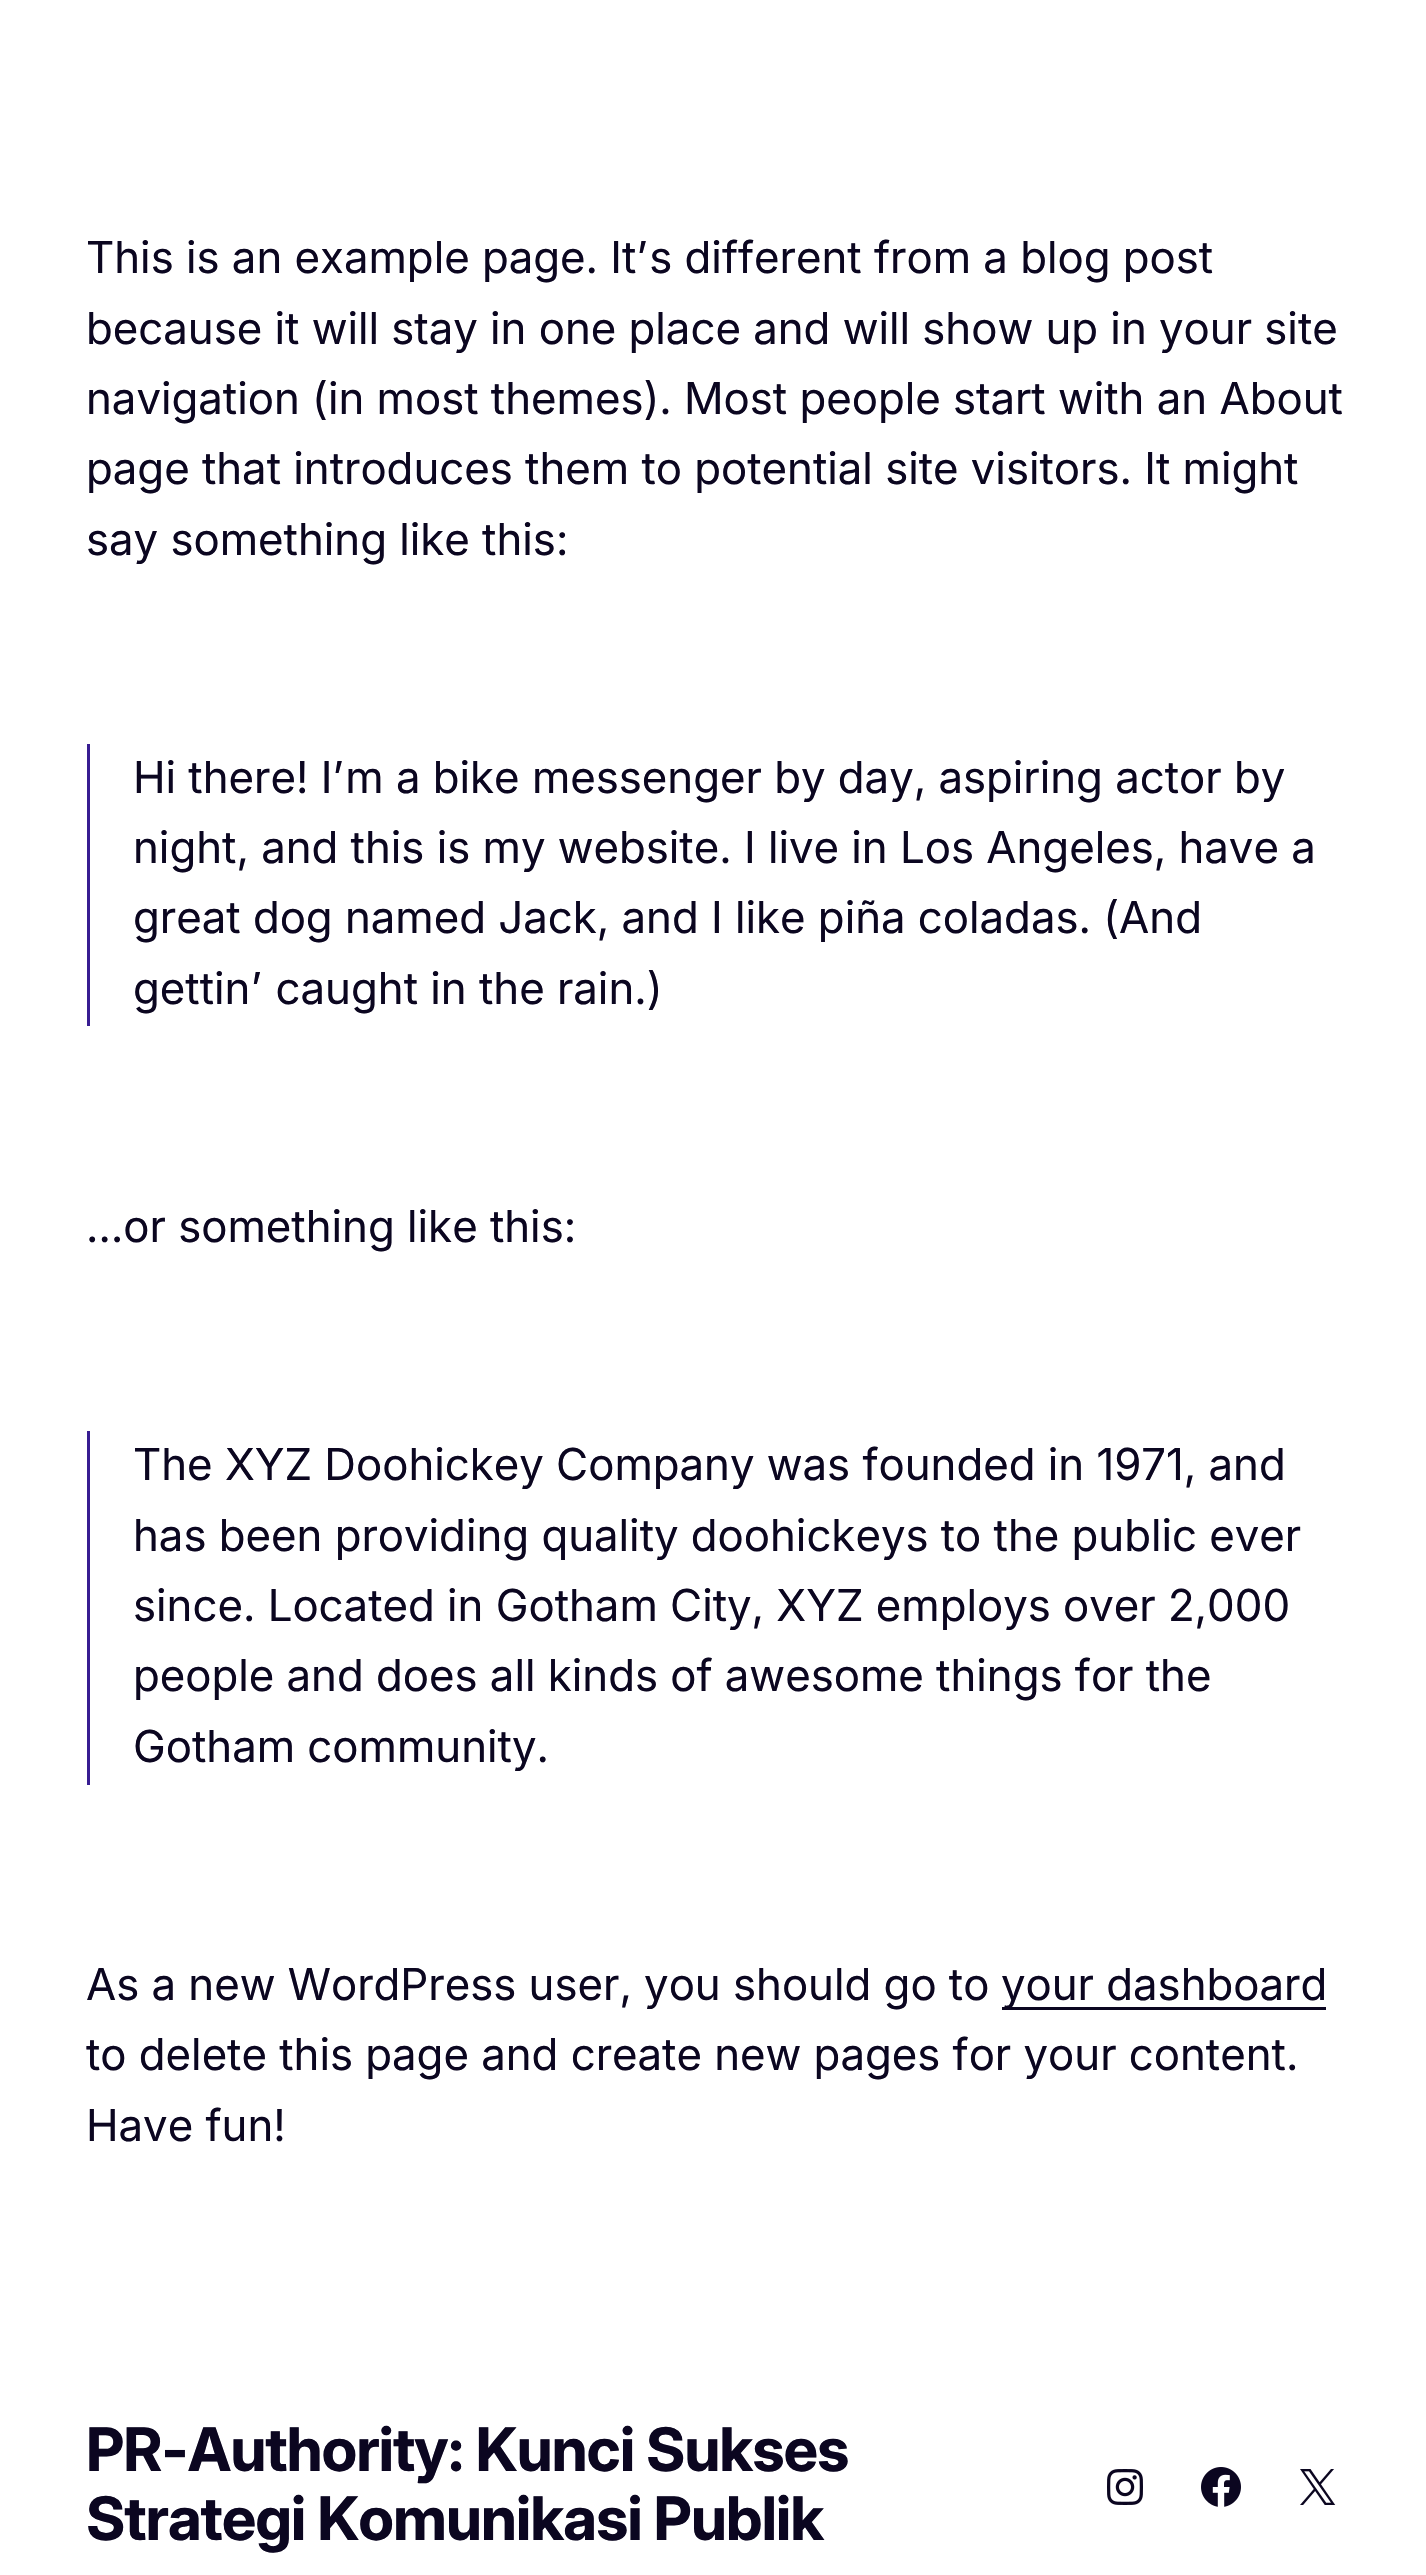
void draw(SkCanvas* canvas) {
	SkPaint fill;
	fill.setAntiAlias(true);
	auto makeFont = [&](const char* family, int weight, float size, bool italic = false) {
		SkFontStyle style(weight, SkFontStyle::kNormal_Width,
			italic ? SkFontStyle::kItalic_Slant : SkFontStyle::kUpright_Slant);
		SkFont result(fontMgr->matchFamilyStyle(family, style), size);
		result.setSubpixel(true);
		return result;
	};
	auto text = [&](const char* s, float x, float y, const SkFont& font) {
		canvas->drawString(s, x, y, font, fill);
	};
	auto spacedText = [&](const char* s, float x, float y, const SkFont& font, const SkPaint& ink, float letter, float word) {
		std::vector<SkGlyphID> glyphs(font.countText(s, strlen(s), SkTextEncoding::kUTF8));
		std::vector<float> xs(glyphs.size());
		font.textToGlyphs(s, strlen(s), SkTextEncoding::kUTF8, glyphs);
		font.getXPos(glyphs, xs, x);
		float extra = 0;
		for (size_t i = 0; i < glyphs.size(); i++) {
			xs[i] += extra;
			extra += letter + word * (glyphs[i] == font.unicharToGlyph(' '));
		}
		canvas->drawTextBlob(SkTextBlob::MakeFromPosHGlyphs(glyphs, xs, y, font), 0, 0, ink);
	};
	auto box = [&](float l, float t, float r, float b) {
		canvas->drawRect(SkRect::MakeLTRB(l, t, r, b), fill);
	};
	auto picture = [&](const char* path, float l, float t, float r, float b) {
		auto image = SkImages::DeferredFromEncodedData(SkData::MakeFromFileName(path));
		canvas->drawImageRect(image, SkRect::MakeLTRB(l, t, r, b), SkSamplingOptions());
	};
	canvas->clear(0xFFFFFFFF);
	fill.setColor(0xFF381D92);
	box(87, 744, 90, 1026);
	box(87, 1431, 90, 1785);
	fill.setColor(0xFF0B0620);
	box(1002, 2007, 1326, 2010);
	picture("image0.png", 1107, 2469, 1143, 2505);
	picture("image1.png", 1201, 2467, 1241, 2507);
	picture("image2.png", 1300, 2469, 1336, 2505);
	auto font1 = makeFont("Inter", 400, 43.95f);
	text("This is an example page. It’s different from a blog post", 86, 273, font1);
	text("because it will stay in one place and will show up in your site", 86, 344, font1);
	text("navigation (in most themes). Most people start with an About", 86, 414, font1);
	text("page that introduces them to potential site visitors. It might", 86, 484, font1);
	text("say something like this:", 86, 555, font1);
	text("Hi there! I’m a bike messenger by day, aspiring actor by", 133, 793, font1);
	text("night, and this is my website. I live in Los Angeles, have a", 133, 863, font1);
	text("great dog named Jack, and I like piña coladas. (And", 133, 933, font1);
	text("gettin’ caught in the rain.)", 133, 1004, font1);
	text("…or something like this:", 86, 1242, font1);
	text("The XYZ Doohickey Company was founded in 1971, and", 133, 1480, font1);
	text("has been providing quality doohickeys to the public ever", 133, 1551, font1);
	text("since. Located in Gotham City, XYZ employs over 2,000", 133, 1621, font1);
	text("people and does all kinds of awesome things for the", 133, 1691, font1);
	text("Gotham community.", 133, 1762, font1);
	text("As a new WordPress user, you should go to", 86, 2000, font1);
	text("your dashboard", 1001, 2000, font1);
	text("to delete this page and create new pages for your content.", 86, 2070, font1);
	text("Have fun!", 86, 2141, font1);
	auto font2 = makeFont("Inter", 700, 60);
	spacedText("PR-Authority: Kunci Sukses", 86, 2471, font2, fill, -1.2f, 0);
	spacedText("Strategi Komunikasi Publik", 86, 2540, font2, fill, -1.2f, 0);
}
